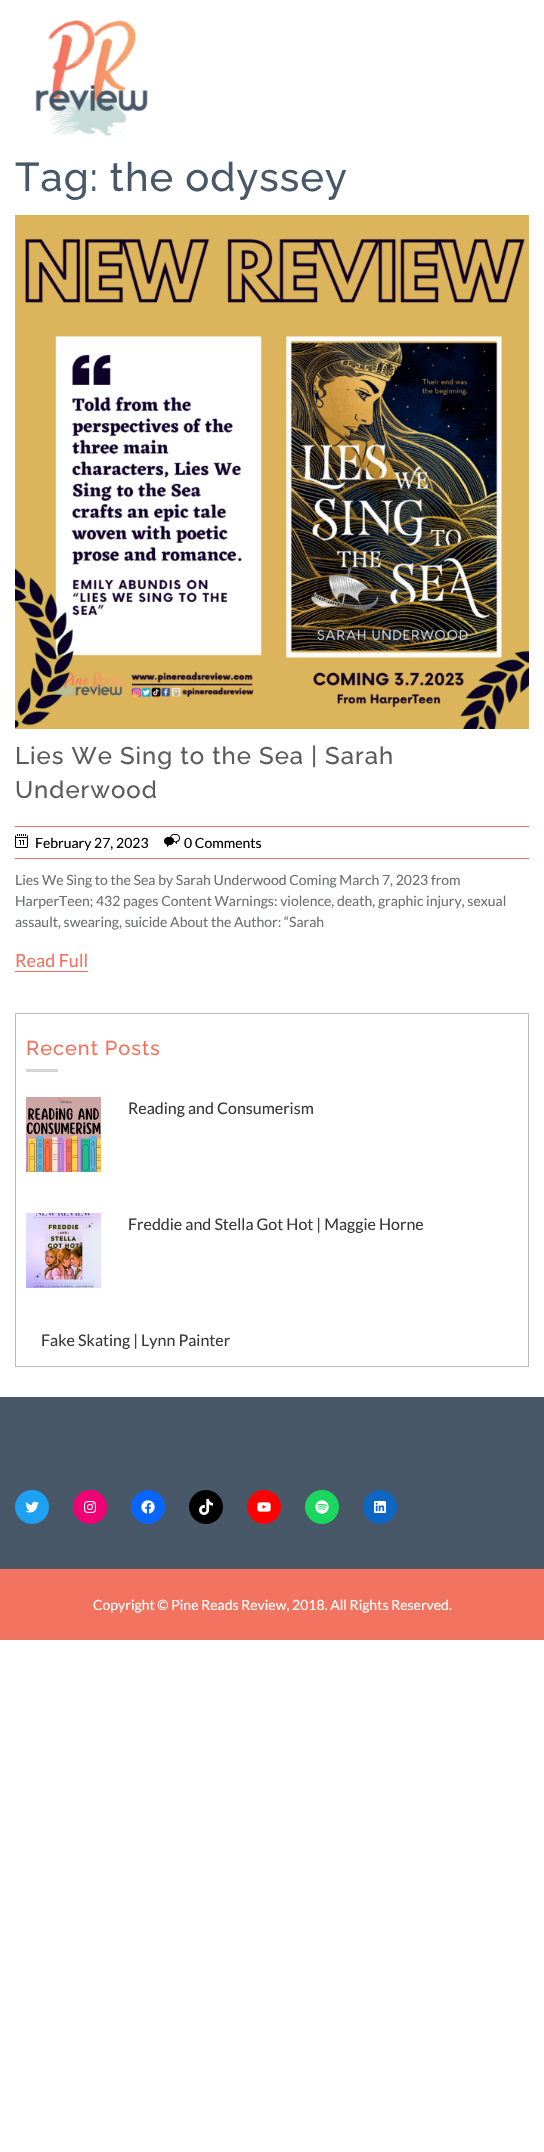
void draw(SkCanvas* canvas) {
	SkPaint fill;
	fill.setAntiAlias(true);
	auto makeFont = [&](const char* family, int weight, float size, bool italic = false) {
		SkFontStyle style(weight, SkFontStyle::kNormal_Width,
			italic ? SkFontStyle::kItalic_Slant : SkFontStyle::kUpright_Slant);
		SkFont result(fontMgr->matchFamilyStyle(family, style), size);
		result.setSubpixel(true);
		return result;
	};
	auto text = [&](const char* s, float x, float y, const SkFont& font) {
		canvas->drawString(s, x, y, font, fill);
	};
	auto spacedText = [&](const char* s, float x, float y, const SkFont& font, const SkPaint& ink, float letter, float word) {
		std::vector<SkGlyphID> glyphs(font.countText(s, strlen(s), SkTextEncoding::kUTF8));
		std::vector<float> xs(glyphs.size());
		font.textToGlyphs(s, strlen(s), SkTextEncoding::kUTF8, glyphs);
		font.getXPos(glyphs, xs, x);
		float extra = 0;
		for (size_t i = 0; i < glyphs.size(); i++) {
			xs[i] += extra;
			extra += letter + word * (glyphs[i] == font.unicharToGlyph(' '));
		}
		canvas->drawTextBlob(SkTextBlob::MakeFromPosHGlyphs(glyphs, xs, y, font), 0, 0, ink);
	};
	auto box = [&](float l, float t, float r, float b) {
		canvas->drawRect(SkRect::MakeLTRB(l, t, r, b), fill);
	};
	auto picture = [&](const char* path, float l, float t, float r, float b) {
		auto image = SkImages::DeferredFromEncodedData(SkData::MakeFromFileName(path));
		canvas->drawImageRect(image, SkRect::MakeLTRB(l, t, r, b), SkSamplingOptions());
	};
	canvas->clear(0xFFFFFFFF);
	picture("image0.png", 35, 20, 148, 136);
	picture("image1.png", 15, 215, 529, 729);
	fill.setColor(0xFFF27360);
	box(15, 826, 529, 827);
	box(15, 858, 529, 859);
	picture("image2.png", 15, 834, 28, 848);
	picture("image3.png", 164, 834, 180, 847);
	box(15, 971, 88, 972);
	fill.setStyle(SkPaint::kStroke_Style);
	fill.setStrokeWidth(1);
	fill.setColor(0xFFBBBBBB);
	canvas->drawRect(SkRect::MakeLTRB(15.5f, 1013.5f, 528.5f, 1366.5f), fill);
	fill.setStyle(SkPaint::kFill_Style);
	fill.setColor(0xFFD6D6D4);
	box(26, 1069, 58, 1072);
	picture("image4.png", 26, 1097, 101, 1172);
	picture("image5.png", 26, 1213, 101, 1288);
	fill.setColor(0xFF485869);
	box(0, 1397, 544, 1569);
	fill.setColor(0xFF1DA1F2);
	canvas->drawCircle(32, 1507, 17, fill);
	picture("image6.png", 25, 1501, 39, 1513);
	fill.setColor(0xFFF00075);
	canvas->drawCircle(90, 1507, 17, fill);
	picture("image7.png", 84, 1501, 96, 1513);
	fill.setColor(0xFF0866FF);
	canvas->drawCircle(148, 1507, 17, fill);
	picture("image8.png", 141, 1500, 155, 1514);
	fill.setColor(0xFF000000);
	canvas->drawCircle(206, 1507, 17, fill);
	picture("image9.png", 199, 1499, 213, 1515);
	fill.setColor(0xFFFF0000);
	canvas->drawCircle(264, 1507, 17, fill);
	picture("image10.png", 257, 1502, 271, 1512);
	fill.setColor(0xFF1BD760);
	canvas->drawCircle(322, 1507, 17, fill);
	picture("image11.png", 315, 1500, 329, 1514);
	fill.setColor(0xFF0D66C2);
	canvas->drawCircle(380, 1507, 17, fill);
	picture("image12.png", 374, 1501, 386, 1513);
	fill.setColor(0xFFF27360);
	box(0, 1569, 544, 1640);
	auto font1 = makeFont("Raleway", 500, 40);
	fill.setColor(0xFF485869);
	spacedText("Tag: the odyssey", 15, 191, font1, fill, 1, 0);
	auto font2 = makeFont("Raleway", 500, 24);
	fill.setColor(0xFF5B5B5B);
	spacedText("Lies We Sing to the Sea | Sarah", 15, 764, font2, fill, 1, 0);
	spacedText("Underwood", 15, 798, font2, fill, 1, 0);
	auto font3 = makeFont("Lato", 400, 14);
	fill.setColor(0xFF000000);
	text("February 27, 2023", 35, 848, font3);
	text("0 Comments", 184, 848, font3);
	fill.setColor(0xFF6E6F71);
	text("Lies We Sing to the Sea by Sarah Underwood Coming March 7, 2023 from", 15, 885, font3);
	text("HarperTeen; 432 pages Content Warnings: violence, death, graphic injury, sexual", 15, 906, font3);
	text("assault, swearing, suicide About the Author: “Sarah", 15, 927, font3);
	auto font4 = makeFont("Lato", 400, 18);
	fill.setColor(0xFFF27360);
	text("Read Full", 15, 967, font4);
	auto font5 = makeFont("Raleway", 500, 20);
	spacedText("Recent Posts", 26, 1055, font5, fill, 1, 0);
	auto font6 = makeFont("Lato", 400, 16);
	fill.setColor(0xFF383838);
	text("Reading and Consumerism", 128, 1114, font6);
	text("Freddie and Stella Got Hot | Maggie Horne", 128, 1230, font6);
	text("Fake Skating | Lynn Painter", 41, 1346, font6);
	fill.setColor(0xFFFFFFFF);
	text("Copyright © Pine Reads Review, 2018. All Rights Reserved.", 93, 1610, font3);
}
